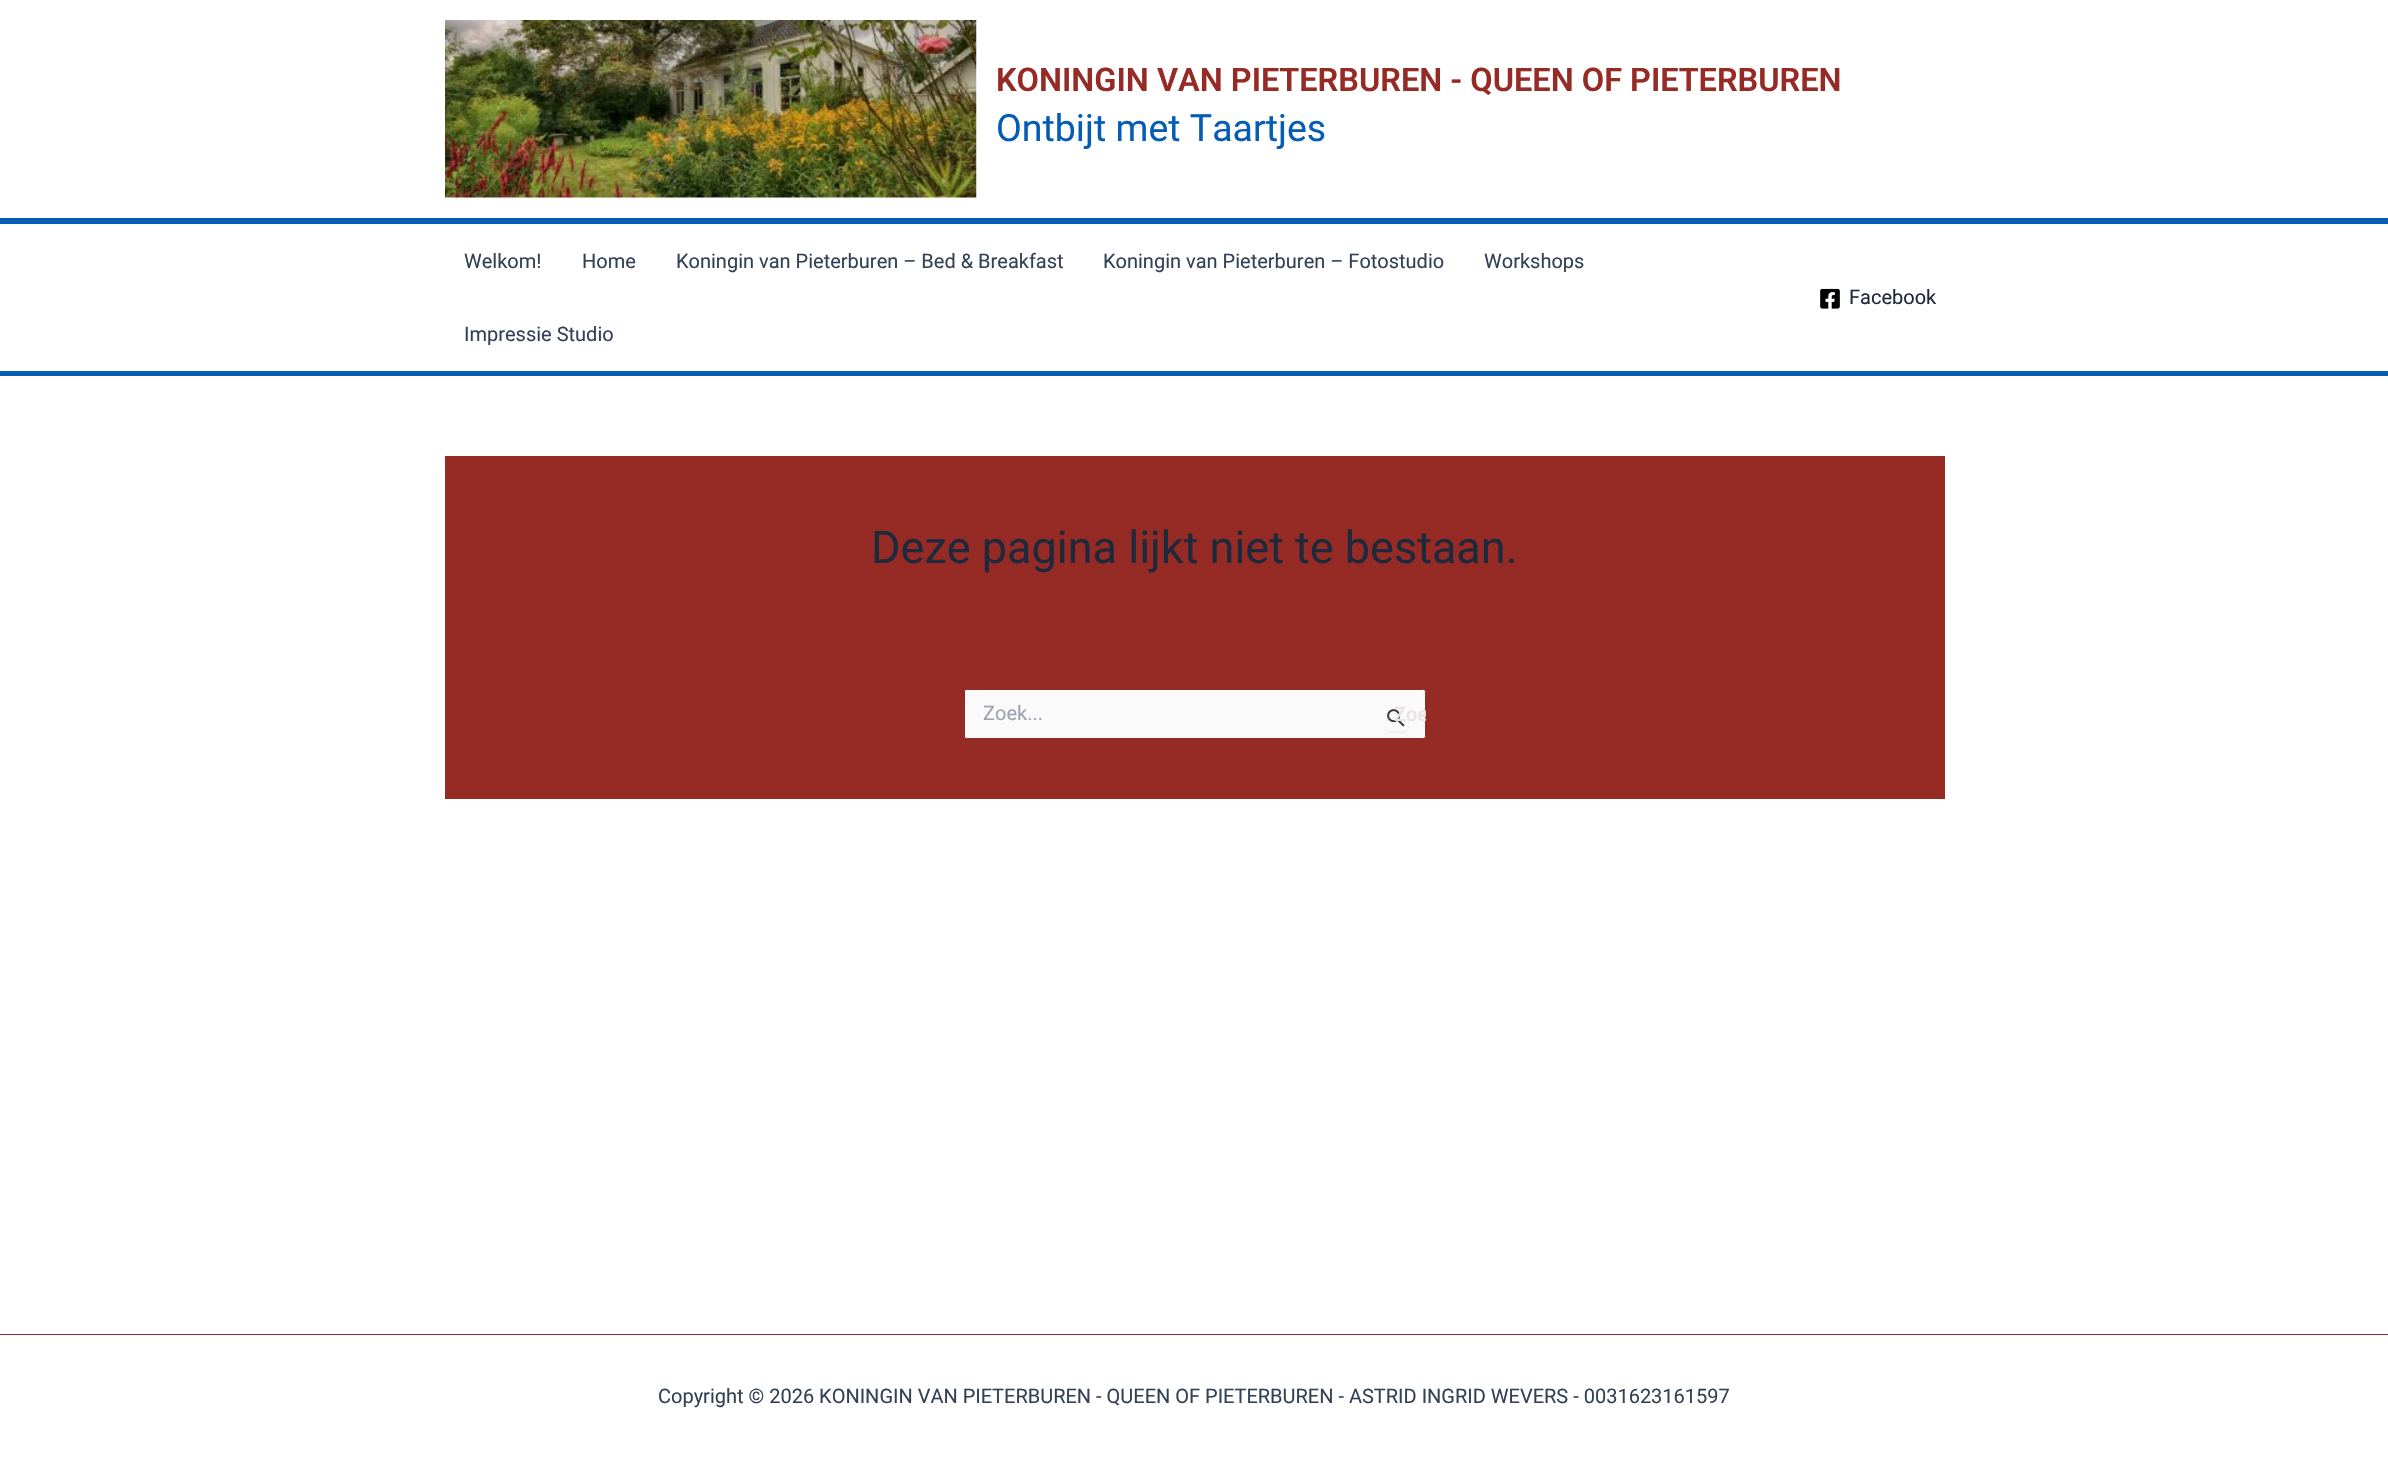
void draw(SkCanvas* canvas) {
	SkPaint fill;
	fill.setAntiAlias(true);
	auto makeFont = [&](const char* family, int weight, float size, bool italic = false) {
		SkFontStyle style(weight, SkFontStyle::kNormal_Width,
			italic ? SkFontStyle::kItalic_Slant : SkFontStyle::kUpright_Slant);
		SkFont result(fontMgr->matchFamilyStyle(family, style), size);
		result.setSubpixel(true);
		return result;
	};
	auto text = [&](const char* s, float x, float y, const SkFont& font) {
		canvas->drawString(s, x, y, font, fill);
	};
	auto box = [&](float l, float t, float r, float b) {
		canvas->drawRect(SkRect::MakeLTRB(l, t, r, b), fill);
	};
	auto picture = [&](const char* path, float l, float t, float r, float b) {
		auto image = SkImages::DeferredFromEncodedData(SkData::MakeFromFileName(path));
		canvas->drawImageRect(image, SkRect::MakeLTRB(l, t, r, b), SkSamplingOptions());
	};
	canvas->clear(0xFFFFFFFF);
	fill.setColor(0xFF045CB4);
	box(0, 218, 2388, 224);
	picture("image0.png", 445, 20, 977, 198);
	box(0, 371, 2388, 376);
	picture("image1.png", 1820, 288, 1840, 309);
	fill.setColor(0xFF962B25);
	box(445, 456, 1945, 799);
	fill.setColor(0xFFFAFAFA);
	canvas->drawRoundRect(SkRect::MakeLTRB(964.5f, 689.5f, 1425.5f, 738.5f), 2, 2, fill);
	fill.setStyle(SkPaint::kStroke_Style);
	fill.setStrokeWidth(1);
	fill.setColor(0xFF962B25);
	canvas->drawRoundRect(SkRect::MakeLTRB(964.5f, 689.5f, 1425.5f, 738.5f), 2, 2, fill);
	canvas->save();
	canvas->clipPath(SkPathBuilder(SkPathFillType::kEvenOdd).moveTo(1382, 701).lineTo(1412, 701).lineTo(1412, 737).lineTo(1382, 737).close().moveTo(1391, 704).lineTo(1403, 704).cubicTo(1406, 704, 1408, 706, 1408, 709).lineTo(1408, 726).cubicTo(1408, 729, 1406, 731, 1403, 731).lineTo(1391, 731).cubicTo(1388, 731, 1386, 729, 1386, 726).lineTo(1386, 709).cubicTo(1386, 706, 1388, 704, 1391, 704).close().detach(), true);
	fill.setStyle(SkPaint::kFill_Style);
	fill.setColor(0x0D000000);
	fill.setMaskFilter(SkMaskFilter::MakeBlur(kNormal_SkBlurStyle, 1));
	canvas->drawRoundRect(SkRect::MakeLTRB(1386, 705, 1408, 733), 5, 5, fill);
	fill.setMaskFilter(nullptr);
	canvas->restore();
	picture("image2.png", 1387, 709, 1405, 727);
	fill.setColor(0xFF962B25);
	box(0, 1334, 2388, 1335);
	auto font1 = makeFont("Roboto", 600, 32.5f);
	text("KONINGIN VAN PIETERBUREN - QUEEN OF PIETERBUREN", 996, 91, font1);
	auto font2 = makeFont("Roboto", 400, 37.5f);
	fill.setColor(0xFF045CB4);
	text("Ontbijt met Taartjes", 996, 141, font2);
	auto font3 = makeFont("Roboto", 400, 20);
	fill.setColor(0xFF334155);
	text("Welkom!", 464, 268, font3);
	text("Home", 582, 268, font3);
	text("Koningin van Pieterburen – Bed & Breakfast", 676, 268, font3);
	text("Koningin van Pieterburen – Fotostudio", 1103, 268, font3);
	text("Workshops", 1484, 268, font3);
	text("Impressie Studio", 464, 341, font3);
	fill.setColor(0xFF1E293B);
	text("Facebook", 1849, 304, font3);
	auto font4 = makeFont("Roboto", 400, 45);
	text("Deze pagina lijkt niet te bestaan.", 871, 563, font4);
	fill.setColor(0xFF9CA3AF);
	text("Zoek...", 983, 720, font3);
	canvas->save();
	canvas->clipPath(SkPathBuilder().moveTo(1372.5f, 689).lineTo(1423.5f, 689).cubicTo(1425, 689, 1426, 690, 1426, 691.5f).lineTo(1426, 738.5f).cubicTo(1426, 740, 1425, 741, 1423.5f, 741).lineTo(1372.5f, 741).cubicTo(1371, 741, 1370, 740, 1370, 738.5f).lineTo(1370, 691.5f).cubicTo(1370, 690, 1371, 689, 1372.5f, 689).close().detach(), true);
	auto font5 = makeFont("Roboto", 500, 20);
	fill.setColor(0xFFE7E3E3);
	text("Zoe", 1394, 721, font5);
	canvas->restore();
	fill.setColor(0xFF334155);
	text("Copyright © 2026 KONINGIN VAN PIETERBUREN - QUEEN OF PIETERBUREN - ASTRID INGRID WEVERS - 0031623161597", 658, 1403, font3);
}
